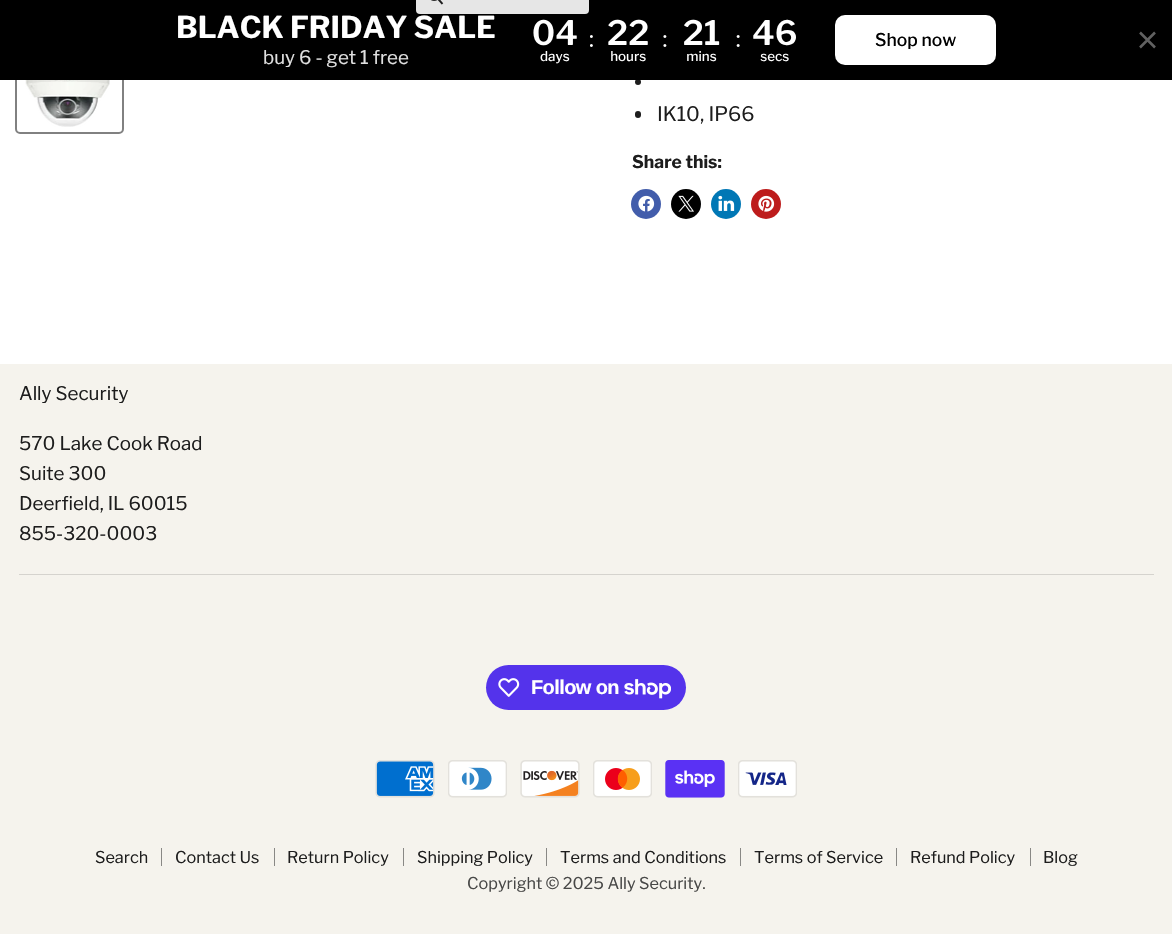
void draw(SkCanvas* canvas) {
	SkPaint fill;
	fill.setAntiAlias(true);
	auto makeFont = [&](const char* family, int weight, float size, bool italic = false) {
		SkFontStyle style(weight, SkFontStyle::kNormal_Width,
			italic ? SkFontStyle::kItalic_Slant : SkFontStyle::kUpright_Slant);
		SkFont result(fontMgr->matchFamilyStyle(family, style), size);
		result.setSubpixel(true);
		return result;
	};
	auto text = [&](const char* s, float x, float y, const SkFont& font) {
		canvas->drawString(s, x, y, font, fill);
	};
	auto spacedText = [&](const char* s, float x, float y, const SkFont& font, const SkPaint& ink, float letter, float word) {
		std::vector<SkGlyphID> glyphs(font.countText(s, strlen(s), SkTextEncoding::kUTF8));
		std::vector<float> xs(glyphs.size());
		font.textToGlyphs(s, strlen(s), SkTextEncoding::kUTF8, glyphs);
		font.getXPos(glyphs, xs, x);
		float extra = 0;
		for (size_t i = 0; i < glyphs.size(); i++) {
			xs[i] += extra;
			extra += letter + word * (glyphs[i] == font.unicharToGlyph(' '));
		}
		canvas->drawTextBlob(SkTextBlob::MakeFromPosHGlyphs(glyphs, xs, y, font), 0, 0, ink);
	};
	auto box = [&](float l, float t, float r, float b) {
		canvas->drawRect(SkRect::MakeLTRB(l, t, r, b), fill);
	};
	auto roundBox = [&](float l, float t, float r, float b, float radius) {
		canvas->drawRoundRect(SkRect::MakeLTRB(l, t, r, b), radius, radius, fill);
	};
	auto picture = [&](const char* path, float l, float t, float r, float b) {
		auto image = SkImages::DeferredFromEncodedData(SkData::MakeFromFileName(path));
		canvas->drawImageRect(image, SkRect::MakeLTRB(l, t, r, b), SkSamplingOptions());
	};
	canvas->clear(0xFFFFFFFF);
	fill.setStyle(SkPaint::kStroke_Style);
	fill.setStrokeWidth(2);
	fill.setColor(0xFF818181);
	canvas->drawRoundRect(SkRect::MakeLTRB(16, 51, 123, 133), 4, 4, fill);
	fill.setStyle(SkPaint::kFill_Style);
	fill.setColor(0xFF1D1D1D);
	canvas->drawCircle(638, 82, 3, fill);
	fill.setColor(0xFF000000);
	box(0, 0, 1172, 80);
	picture("image0.png", 533, 19, 796, 64);
	fill.setColor(0xFFFFFFFF);
	roundBox(835, 15, 996, 65, 10);
	fill.setStyle(SkPaint::kStroke_Style);
	fill.setStrokeWidth(2.5f);
	fill.setColor(0xFF616161);
	canvas->drawPath(SkPathBuilder().moveTo(1155, 32.5f).lineTo(1140, 47.5f).moveTo(1155, 47.5f).lineTo(1140, 32.5f).detach(), fill);
	fill.setStyle(SkPaint::kFill_Style);
	fill.setColor(0xFFE6E6E6);
	roundBox(416, -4, 589, 14, 4);
	picture("image1.png", 431, 0, 444, 5);
	picture("image2.png", 25, 80, 110, 127);
	fill.setColor(0xFF1D1D1D);
	roundBox(635, 111, 641, 118, 3);
	fill.setColor(0xFF425DAB);
	canvas->drawCircle(646, 204, 15, fill);
	picture("image3.png", 638, 195, 655, 212);
	fill.setColor(0xFF000000);
	canvas->drawCircle(686, 204, 15, fill);
	picture("image4.png", 678, 195, 694, 212);
	fill.setColor(0xFF0077B5);
	canvas->drawCircle(726, 204, 15, fill);
	picture("image5.png", 718, 195, 735, 211);
	fill.setColor(0xFFBD1C1C);
	canvas->drawCircle(766, 204, 15, fill);
	picture("image6.png", 758, 195, 775, 212);
	fill.setColor(0xFFF5F3ED);
	box(0, 364, 1172, 934);
	fill.setColor(0xFFD5D3CE);
	box(19, 574, 1154, 575);
	fill.setColor(0xFF5433EB);
	roundBox(486, 665, 686, 710, 22.5f);
	picture("image7.png", 498, 678, 520, 697);
	picture("image8.png", 624, 679, 671, 699);
	picture("image9.png", 375, 760, 435, 798);
	picture("image10.png", 448, 760, 507, 798);
	picture("image11.png", 520, 760, 580, 798);
	picture("image12.png", 593, 760, 652, 798);
	picture("image13.png", 665, 760, 725, 798);
	picture("image14.png", 738, 760, 797, 798);
	fill.setColor(0xFF898885);
	box(161, 848, 162, 866);
	box(274, 848, 275, 866);
	box(403, 848, 404, 866);
	box(546, 848, 547, 866);
	box(740, 848, 741, 866);
	box(896, 848, 897, 866);
	box(1030, 848, 1031, 866);
	auto font1 = makeFont("Libre Franklin", 700, 30);
	fill.setColor(0xFFFFFFFF);
	text("BLACK FRIDAY SALE", 176, 38, font1);
	auto font2 = makeFont("Libre Franklin", 400, 18.75f);
	fill.setColor(0xFFE0E0E0);
	text("buy 6 - get 1 free", 263, 64, font2);
	auto font3 = makeFont("Libre Franklin", 500, 17.5f);
	fill.setColor(0xFF000000);
	text("Shop now", 875, 46, font3);
	auto font4 = makeFont("Libre Franklin", 400, 20);
	fill.setColor(0xFF1D1D1D);
	text("IK10, IP66", 657, 121, font4);
	auto font5 = makeFont("Libre Franklin", 700, 17.5f);
	text("Share this:", 632, 168, font5);
	text("Ally Security", 19, 400, font2);
	text("570 Lake Cook Road", 19, 450, font2);
	text("Suite 300", 19, 480, font2);
	text("Deerfield, IL 60015", 19, 510, font2);
	text("855-320-0003", 19, 540, font2);
	auto font6 = makeFont("Liberation Sans", 700, 20);
	fill.setColor(0xFFFFFFFF);
	spacedText("Follow on", 531, 694, font6, fill, -0.6f, 0);
	auto font7 = makeFont("Libre Franklin", 400, 16.25f);
	fill.setColor(0xFF1D1D1D);
	text("Search", 95, 863, font7);
	text("Contact Us", 175, 863, font7);
	text("Return Policy", 287, 863, font7);
	text("Shipping Policy", 417, 863, font7);
	text("Terms and Conditions", 560, 863, font7);
	text("Terms of Service", 754, 863, font7);
	text("Refund Policy", 910, 863, font7);
	text("Blog", 1043, 863, font7);
	fill.setColor(0xFF484847);
	text("Copyright © 2025 Ally Security.", 467, 889, font7);
}
